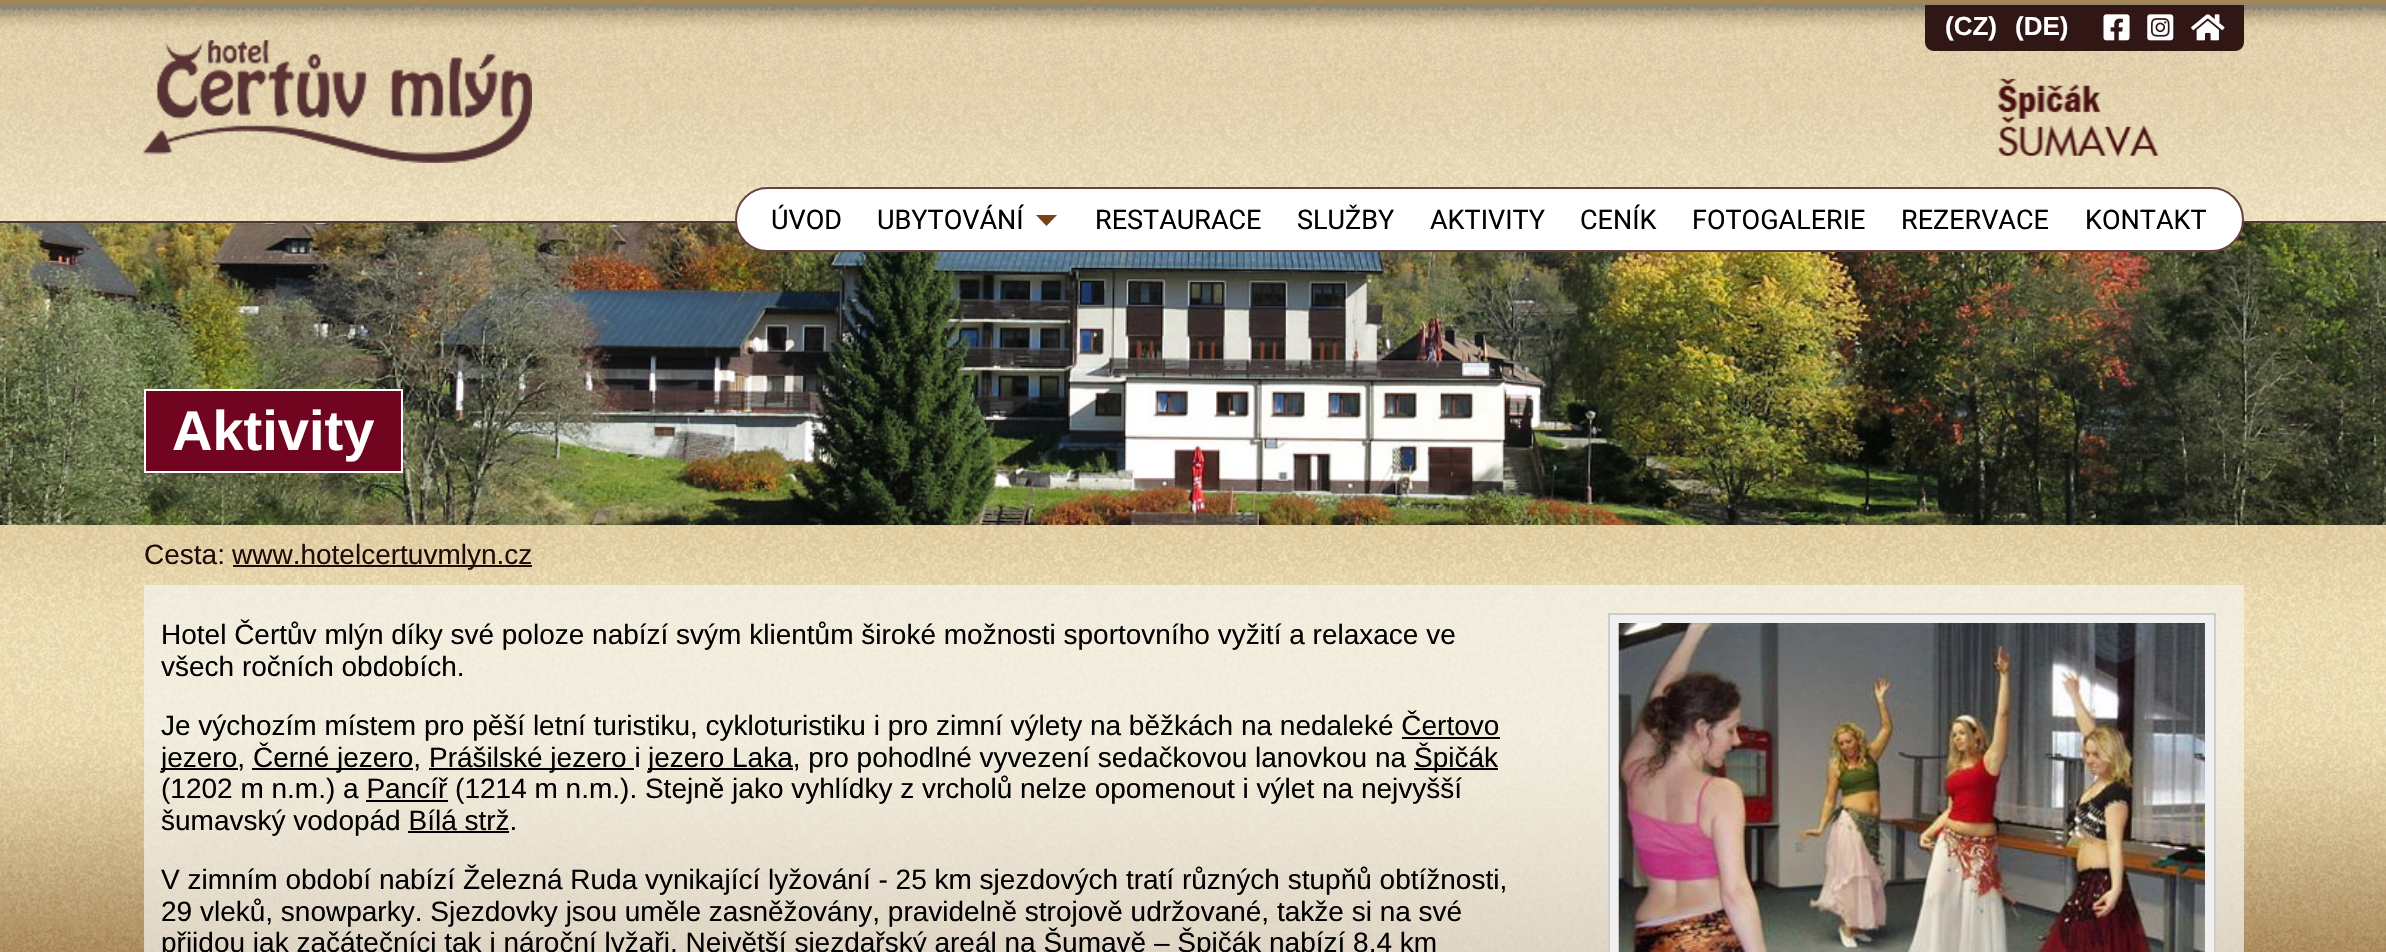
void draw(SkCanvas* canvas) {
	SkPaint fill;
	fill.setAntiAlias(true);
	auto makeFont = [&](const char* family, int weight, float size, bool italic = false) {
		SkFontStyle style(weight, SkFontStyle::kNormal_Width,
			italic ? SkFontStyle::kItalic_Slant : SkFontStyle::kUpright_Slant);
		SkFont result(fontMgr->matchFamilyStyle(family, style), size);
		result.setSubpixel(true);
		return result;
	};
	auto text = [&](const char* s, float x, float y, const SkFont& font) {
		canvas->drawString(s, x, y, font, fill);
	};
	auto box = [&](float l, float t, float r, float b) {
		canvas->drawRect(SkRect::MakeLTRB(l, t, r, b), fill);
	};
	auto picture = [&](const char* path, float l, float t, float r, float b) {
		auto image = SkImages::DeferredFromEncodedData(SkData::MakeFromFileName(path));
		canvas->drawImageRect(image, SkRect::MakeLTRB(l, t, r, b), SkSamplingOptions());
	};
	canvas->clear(0xFFFFFFFF);
	picture("image0.png", 0, 525, 2386, 952);
	picture("image1.png", 0, 0, 2386, 221);
	fill.setColor(0xFF533737);
	box(0, 221, 2386, 223);
	fill.setColor(0xFF311616);
	canvas->drawPath(SkPathBuilder().moveTo(1925, 5).lineTo(2244, 5).lineTo(2244, 42).cubicTo(2244, 47, 2240, 51, 2235, 51).lineTo(1934, 51).cubicTo(1929, 51, 1925, 47, 1925, 42).close().detach(), fill);
	picture("image2.png", 2103, 14, 2130, 41);
	picture("image3.png", 2147, 14, 2174, 41);
	picture("image4.png", 2191, 14, 2225, 41);
	picture("image5.png", 143, 40, 532, 163);
	picture("image6.png", 1997, 78, 2159, 158);
	picture("image7.png", 0, 223, 2386, 525);
	fill.setColor(0xFFFFFFFF);
	canvas->drawRoundRect(SkRect::MakeLTRB(736, 188, 2243, 251), 31.5f, 31.5f, fill);
	fill.setStyle(SkPaint::kStroke_Style);
	fill.setStrokeWidth(2);
	fill.setColor(0xFF684040);
	canvas->drawRoundRect(SkRect::MakeLTRB(736, 188, 2243, 251), 31.5f, 31.5f, fill);
	fill.setStyle(SkPaint::kFill_Style);
	fill.setColor(0xFF794212);
	canvas->drawPath(SkPathBuilder().moveTo(1036, 215).lineTo(1057, 215).lineTo(1046.5f, 226).close().detach(), fill);
	fill.setColor(0xFF71041F);
	canvas->drawRect(SkRect::MakeLTRB(145, 390, 402, 472), fill);
	fill.setStyle(SkPaint::kStroke_Style);
	fill.setColor(0xFFFFFFFF);
	canvas->drawRect(SkRect::MakeLTRB(145, 390, 402, 472), fill);
	fill.setStyle(SkPaint::kFill_Style);
	fill.setColor(0xFF1E0B0B);
	box(233, 565, 532, 567);
	fill.setColor(0xB3F5F3EF);
	box(144, 585, 2244, 952);
	fill.setColor(0xFF000000);
	box(1402, 737, 1500, 739);
	box(161, 768, 238, 770);
	box(252, 768, 413, 770);
	box(429, 768, 634, 770);
	box(648, 768, 793, 770);
	box(1414, 768, 1498, 770);
	box(366, 800, 448, 802);
	box(408, 831, 509, 833);
	fill.setColor(0xFFF0F0F0);
	canvas->drawRect(SkRect::MakeLTRB(1609, 614, 2215, 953), fill);
	fill.setStyle(SkPaint::kStroke_Style);
	fill.setColor(0xFFCCCCCC);
	canvas->drawRect(SkRect::MakeLTRB(1609, 614, 2215, 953), fill);
	picture("image8.png", 1618, 623, 2205, 952);
	auto font1 = makeFont("Liberation Sans", 700, 26);
	fill.setStyle(SkPaint::kFill_Style);
	fill.setColor(0xFFFFFFFF);
	text("(CZ)", 1945, 35, font1);
	text("(DE)", 2015, 35, font1);
	auto font2 = makeFont("Roboto", 400, 27);
	fill.setColor(0xFF000000);
	text("ÚVOD", 771, 229, font2);
	text("UBYTOVÁNÍ", 877, 229, font2);
	text("RESTAURACE", 1095, 229, font2);
	text("SLUŽBY", 1297, 229, font2);
	text("AKTIVITY", 1430, 229, font2);
	text("CENÍK", 1580, 229, font2);
	text("FOTOGALERIE", 1692, 229, font2);
	text("REZERVACE", 1901, 229, font2);
	text("KONTAKT", 2085, 229, font2);
	auto font3 = makeFont("Liberation Sans", 700, 56);
	fill.setColor(0xFFFFFFFF);
	text("Aktivity", 172, 450, font3);
	auto font4 = makeFont("Liberation Sans", 400, 28);
	fill.setColor(0xFF200B0B);
	text("Cesta:", 144, 564, font4);
	text("www.hotelcertuvmlyn.cz", 232, 564, font4);
	fill.setColor(0xFF000000);
	text("Hotel Čertův mlýn díky své poloze nabízí svým klientům široké možnosti sportovního vyžití a relaxace ve", 161, 644, font4);
	text("všech ročních obdobích.", 161, 676, font4);
	text("Je výchozím místem pro pěší letní turistiku, cykloturistiku i pro zimní výlety na běžkách na nedaleké Čertovo", 161, 735, font4);
	text("jezero,", 161, 767, font4);
	text("Černé jezero,", 253, 767, font4);
	text("Prášilské jezero i", 429, 767, font4);
	text("jezero Laka, pro pohodlné vyvezení sedačkovou lanovkou na", 648, 767, font4);
	text("Špičák", 1414, 767, font4);
	text("(1202 m n.m.) a Pancíř (1214 m n.m.). Stejně jako vyhlídky z vrcholů nelze opomenout i výlet na nejvyšší", 161, 798, font4);
	text("šumavský vodopád Bílá strž.", 161, 830, font4);
	text("V zimním období nabízí Železná Ruda vynikající lyžování - 25 km sjezdových tratí různých stupňů obtížnosti,", 161, 889, font4);
	text("29 vleků, snowparky. Sjezdovky jsou uměle zasněžovány, pravidelně strojově udržované, takže si na své", 161, 921, font4);
	text("přijdou jak začátečníci tak i nároční lyžaři. Největší sjezdařský areál na Šumavě – Špičák nabízí 8,4 km", 161, 952, font4);
}
